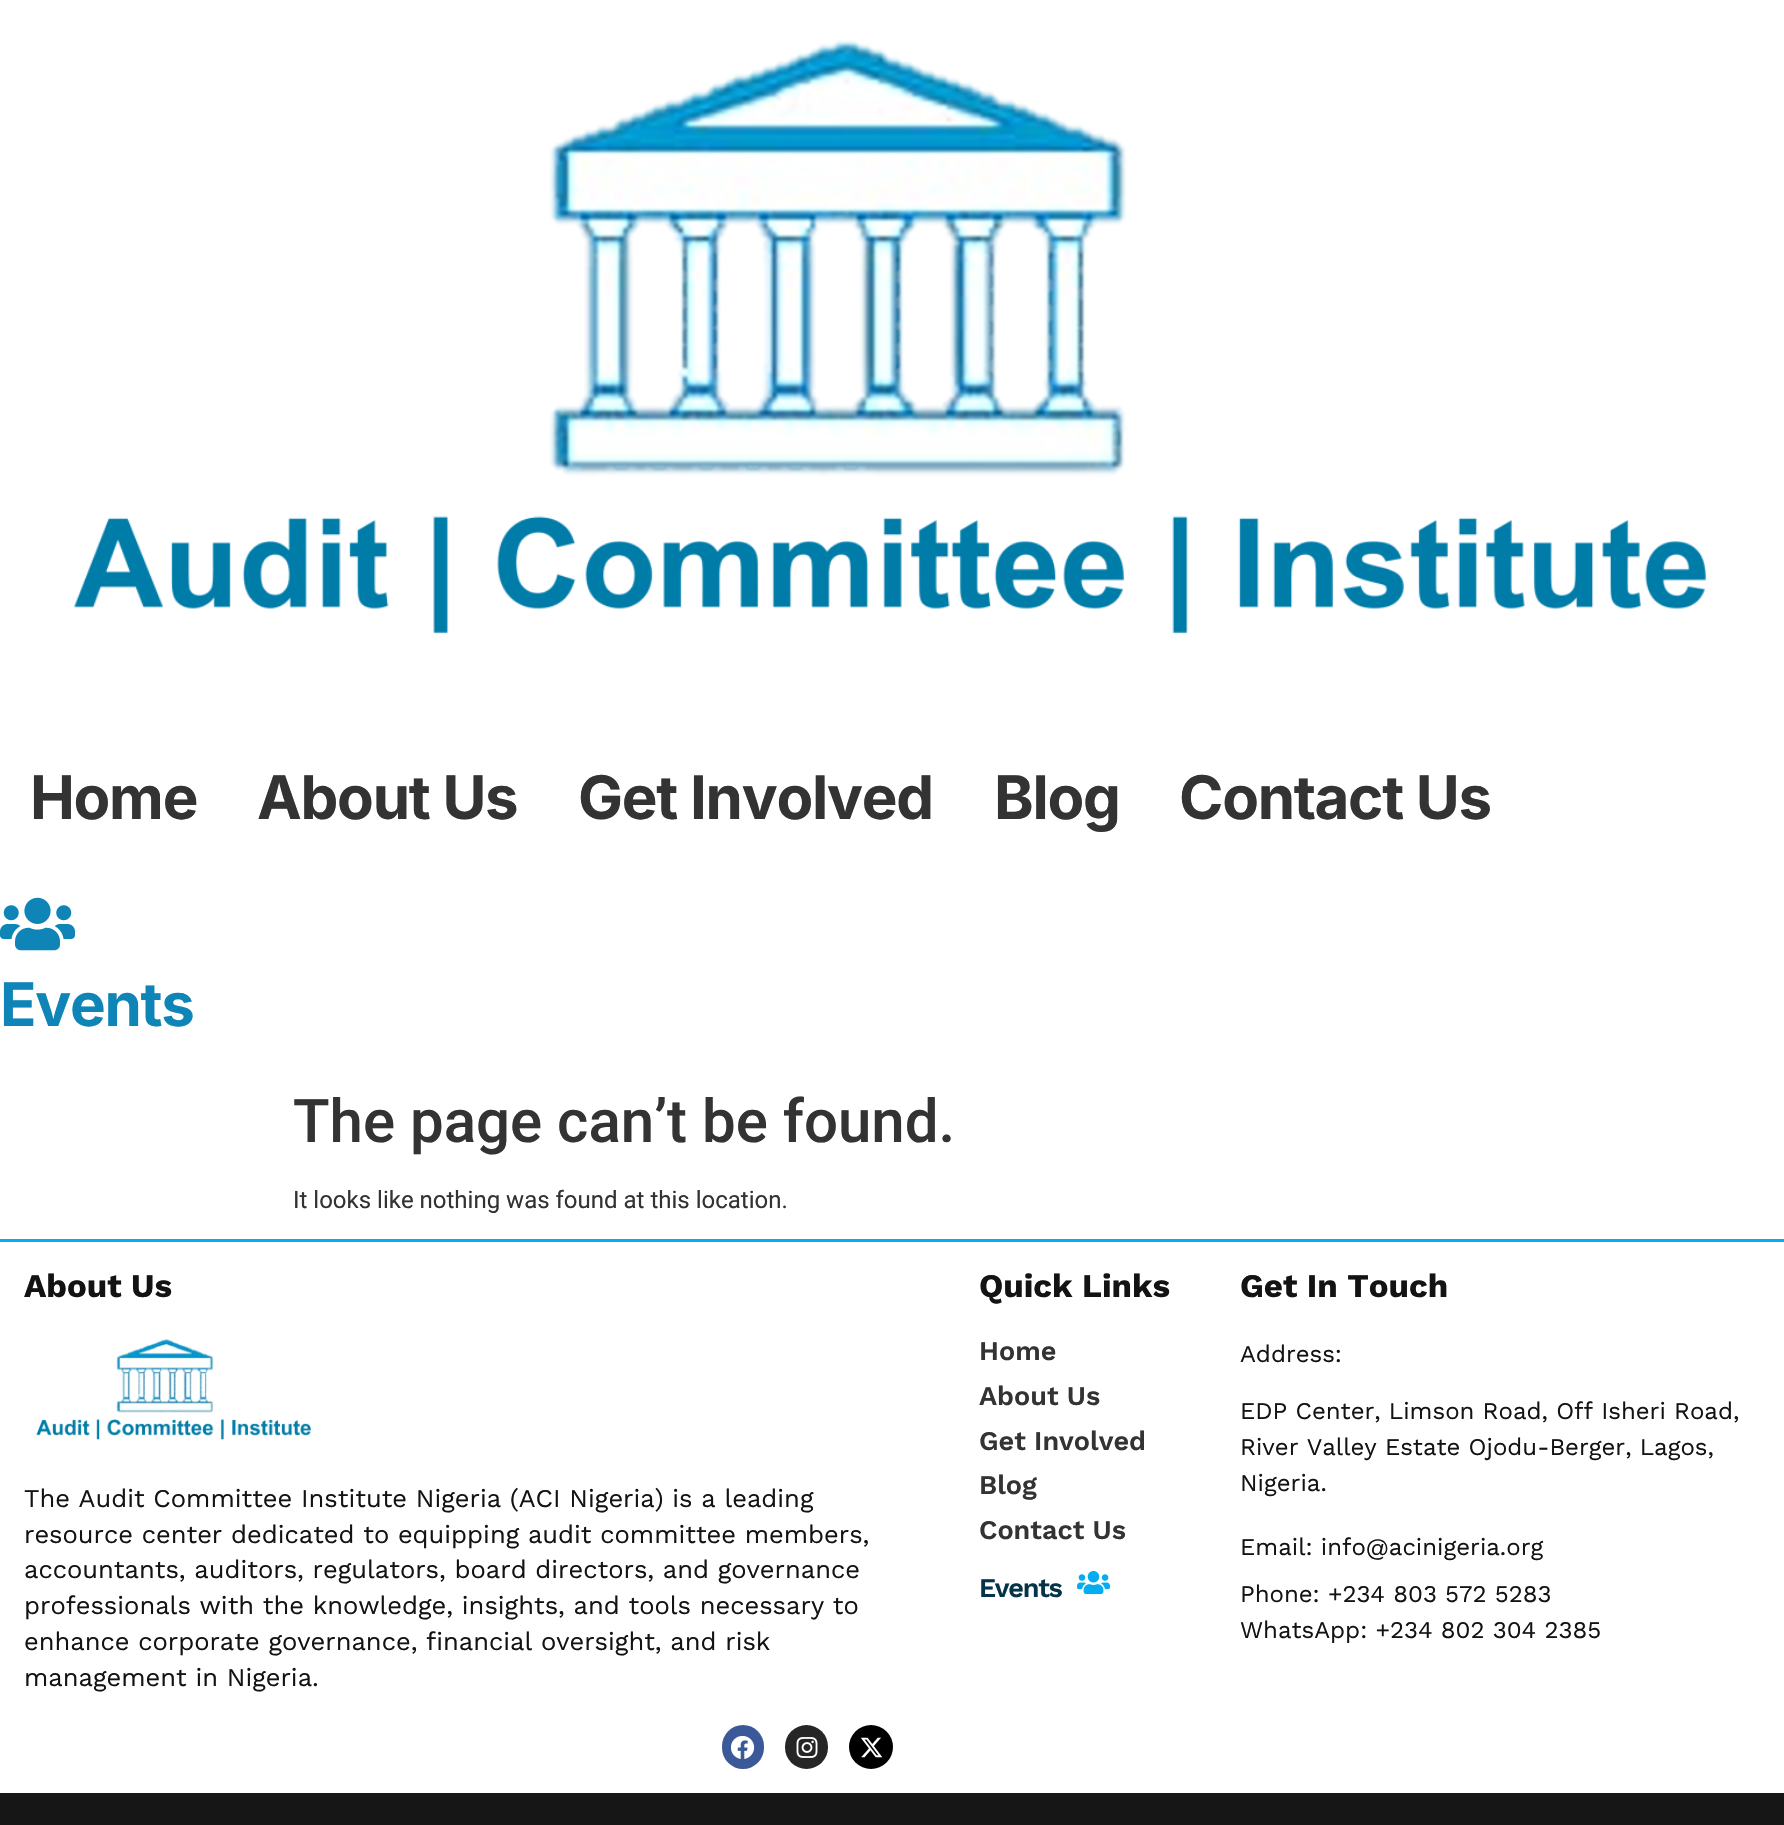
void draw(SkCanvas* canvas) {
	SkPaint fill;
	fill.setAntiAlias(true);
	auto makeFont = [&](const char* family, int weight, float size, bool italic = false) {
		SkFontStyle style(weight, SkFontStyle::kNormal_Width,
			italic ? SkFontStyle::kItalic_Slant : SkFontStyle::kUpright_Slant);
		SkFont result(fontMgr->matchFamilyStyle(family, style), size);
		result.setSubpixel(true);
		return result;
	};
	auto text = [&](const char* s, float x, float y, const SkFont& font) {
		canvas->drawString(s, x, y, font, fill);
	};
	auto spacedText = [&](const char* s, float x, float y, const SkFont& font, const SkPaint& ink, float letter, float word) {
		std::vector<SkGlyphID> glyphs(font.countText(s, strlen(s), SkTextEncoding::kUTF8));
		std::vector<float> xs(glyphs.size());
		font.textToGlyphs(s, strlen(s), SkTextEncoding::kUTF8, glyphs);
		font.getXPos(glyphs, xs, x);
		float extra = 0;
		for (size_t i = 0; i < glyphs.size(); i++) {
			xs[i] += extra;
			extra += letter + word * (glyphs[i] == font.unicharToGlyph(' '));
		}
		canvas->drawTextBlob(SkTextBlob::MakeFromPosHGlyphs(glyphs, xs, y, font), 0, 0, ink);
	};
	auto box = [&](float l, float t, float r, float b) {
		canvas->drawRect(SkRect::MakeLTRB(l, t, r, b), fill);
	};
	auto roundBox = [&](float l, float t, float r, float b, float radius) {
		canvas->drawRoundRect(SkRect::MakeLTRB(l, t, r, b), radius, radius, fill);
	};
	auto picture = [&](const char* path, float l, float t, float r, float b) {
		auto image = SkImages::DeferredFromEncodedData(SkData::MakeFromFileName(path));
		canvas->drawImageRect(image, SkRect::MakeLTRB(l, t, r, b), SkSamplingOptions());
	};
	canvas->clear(0xFFFFFFFF);
	picture("image0.png", 74, 40, 1707, 634);
	picture("image1.png", 0, 897, 75, 951);
	fill.setColor(0xFF06ACF0);
	box(0, 1239, 1784, 1242);
	picture("image2.png", 36, 1339, 311, 1440);
	fill.setColor(0xFF3B5998);
	roundBox(722, 1725, 764, 1769, 21);
	picture("image3.png", 731, 1736, 755, 1759);
	fill.setColor(0xFF262626);
	roundBox(785, 1725, 828, 1769, 21.5f);
	picture("image4.png", 796, 1737, 818, 1758);
	fill.setColor(0xFF000000);
	canvas->drawCircle(871, 1747, 22, fill);
	picture("image5.png", 860, 1737, 883, 1758);
	picture("image6.png", 1077, 1570, 1110, 1595);
	fill.setColor(0xFF161616);
	box(0, 1793, 1784, 1825);
	auto font1 = makeFont("Inter", 700, 60);
	fill.setColor(0xFF333333);
	spacedText("Home", 30, 819, font1, fill, -1.25f, 0);
	spacedText("About Us", 257, 819, font1, fill, -1.25f, 0);
	spacedText("Get Involved", 578, 819, font1, fill, -1.25f, 0);
	spacedText("Blog", 994, 819, font1, fill, -1.25f, 0);
	spacedText("Contact Us", 1179, 819, font1, fill, -1.25f, 0);
	fill.setColor(0xFF0F85B7);
	spacedText("Events", 0, 1026, font1, fill, -1.25f, 0);
	auto font2 = makeFont("Roboto", 500, 60);
	fill.setColor(0xFF333333);
	text("The page can’t be found.", 293, 1142, font2);
	auto font3 = makeFont("Roboto", 400, 24);
	text("It looks like nothing was found at this location.", 293, 1208, font3);
	auto font4 = makeFont("Work Sans", 700, 33);
	fill.setColor(0xFF131313);
	text("About Us", 24, 1297, font4);
	auto font5 = makeFont("Work Sans", 400, 25.5f);
	text("The Audit Committee Institute Nigeria (ACI Nigeria) is a leading", 24, 1507, font5);
	text("resource center dedicated to equipping audit committee members,", 24, 1543, font5);
	text("accountants, auditors, regulators, board directors, and governance", 24, 1578, font5);
	text("professionals with the knowledge, insights, and tools necessary to", 24, 1614, font5);
	text("enhance corporate governance, financial oversight, and risk", 24, 1650, font5);
	text("management in Nigeria.", 24, 1686, font5);
	text("Quick Links", 979, 1297, font4);
	auto font6 = makeFont("Work Sans", 600, 27);
	fill.setColor(0xFF333333);
	text("Home", 979, 1360, font6);
	text("About Us", 979, 1405, font6);
	text("Get Involved", 979, 1450, font6);
	text("Blog", 979, 1494, font6);
	text("Contact Us", 979, 1539, font6);
	fill.setColor(0xFF053449);
	spacedText("Events", 979, 1597, font6, fill, -1.25f, 0);
	fill.setColor(0xFF131313);
	text("Get In Touch", 1240, 1297, font4);
	auto font7 = makeFont("Work Sans", 400, 24);
	text("Address:", 1240, 1362, font7);
	text("EDP Center, Limson Road, Off Isheri Road,", 1240, 1419, font7);
	text("River Valley Estate Ojodu-Berger, Lagos,", 1240, 1455, font7);
	text("Nigeria.", 1240, 1491, font7);
	text("Email: info@acinigeria.org", 1240, 1555, font7);
	text("Phone: +234 803 572 5283", 1240, 1602, font7);
	text("WhatsApp: +234 802 304 2385", 1240, 1638, font7);
}
